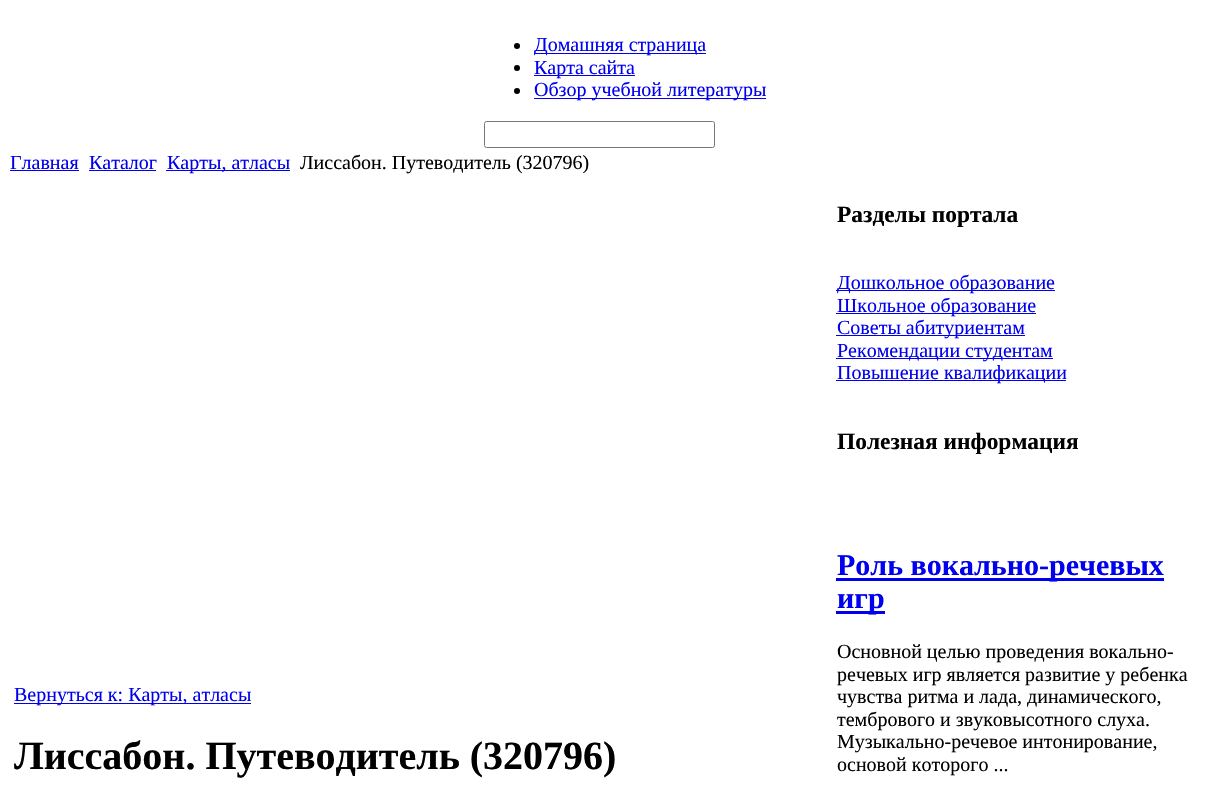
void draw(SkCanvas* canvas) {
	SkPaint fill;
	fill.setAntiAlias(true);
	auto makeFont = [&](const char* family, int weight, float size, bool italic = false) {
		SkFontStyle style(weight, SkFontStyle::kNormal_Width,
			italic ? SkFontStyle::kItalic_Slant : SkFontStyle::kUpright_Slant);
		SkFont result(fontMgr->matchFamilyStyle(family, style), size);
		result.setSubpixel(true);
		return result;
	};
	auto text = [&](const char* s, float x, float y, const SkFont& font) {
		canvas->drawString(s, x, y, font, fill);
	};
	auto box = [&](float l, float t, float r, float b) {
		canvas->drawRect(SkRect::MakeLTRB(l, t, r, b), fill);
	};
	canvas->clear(0xFFFFFFFF);
	fill.setColor(0xFF000000);
	canvas->drawCircle(517, 46, 3, fill);
	fill.setColor(0xFF0000EE);
	box(534, 53, 706, 54);
	fill.setColor(0xFF000000);
	canvas->drawCircle(517, 68, 3, fill);
	fill.setColor(0xFF0000EE);
	box(534, 75, 635, 76);
	fill.setColor(0xFF000000);
	canvas->drawCircle(517, 91, 3, fill);
	fill.setColor(0xFF0000EE);
	box(534, 98, 766, 99);
	fill.setStyle(SkPaint::kStroke_Style);
	fill.setStrokeWidth(1);
	fill.setColor(0xFF767676);
	canvas->drawRoundRect(SkRect::MakeLTRB(484.5f, 121.5f, 714.5f, 147.5f), 2, 2, fill);
	fill.setStyle(SkPaint::kFill_Style);
	fill.setColor(0xFF0000EE);
	box(10, 170, 79, 171);
	box(89, 170, 156, 171);
	box(166, 170, 290, 171);
	box(14, 703, 251, 704);
	box(836, 290, 1055, 291);
	box(836, 313, 1036, 314);
	box(836, 335, 1025, 336);
	box(836, 358, 1053, 359);
	box(836, 380, 1066, 381);
	box(836, 578, 1164, 581);
	box(836, 611, 885, 614);
	auto font1 = makeFont("Liberation Serif", 400, 20);
	text("Домашняя страница", 534, 51, font1);
	text("Карта сайта", 534, 74, font1);
	text("Обзор учебной литературы", 534, 96, font1);
	text("Главная", 10, 169, font1);
	text("Каталог", 89, 169, font1);
	text("Карты, атласы", 167, 169, font1);
	fill.setColor(0xFF000000);
	text("Лиссабон. Путеводитель (320796)", 300, 169, font1);
	fill.setColor(0xFF0000EE);
	text("Вернуться к: Карты, атласы", 14, 701, font1);
	auto font2 = makeFont("Liberation Serif", 700, 40);
	fill.setColor(0xFF000000);
	text("Лиссабон. Путеводитель (320796)", 14, 769, font2);
	auto font3 = makeFont("Liberation Serif", 700, 23.4f);
	text("Разделы портала", 837, 222, font3);
	fill.setColor(0xFF0000EE);
	text("Дошкольное образование", 837, 289, font1);
	text("Школьное образование", 837, 312, font1);
	text("Советы абитуриентам", 837, 334, font1);
	text("Рекомендации студентам", 837, 357, font1);
	text("Повышение квалификации", 837, 379, font1);
	fill.setColor(0xFF000000);
	text("Полезная информация", 837, 449, font3);
	auto font4 = makeFont("Liberation Serif", 700, 30);
	fill.setColor(0xFF0000EE);
	text("Роль вокально-речевых", 837, 575, font4);
	text("игр", 837, 608, font4);
	fill.setColor(0xFF000000);
	text("Основной целью проведения вокально-", 837, 658, font1);
	text("речевых игр является развитие у ребенка", 837, 681, font1);
	text("чувства ритма и лада, динамического,", 837, 703, font1);
	text("тембрового и звуковысотного слуха.", 837, 726, font1);
	text("Музыкально-речевое интонирование,", 837, 748, font1);
	text("основой которого ...", 837, 771, font1);
}
